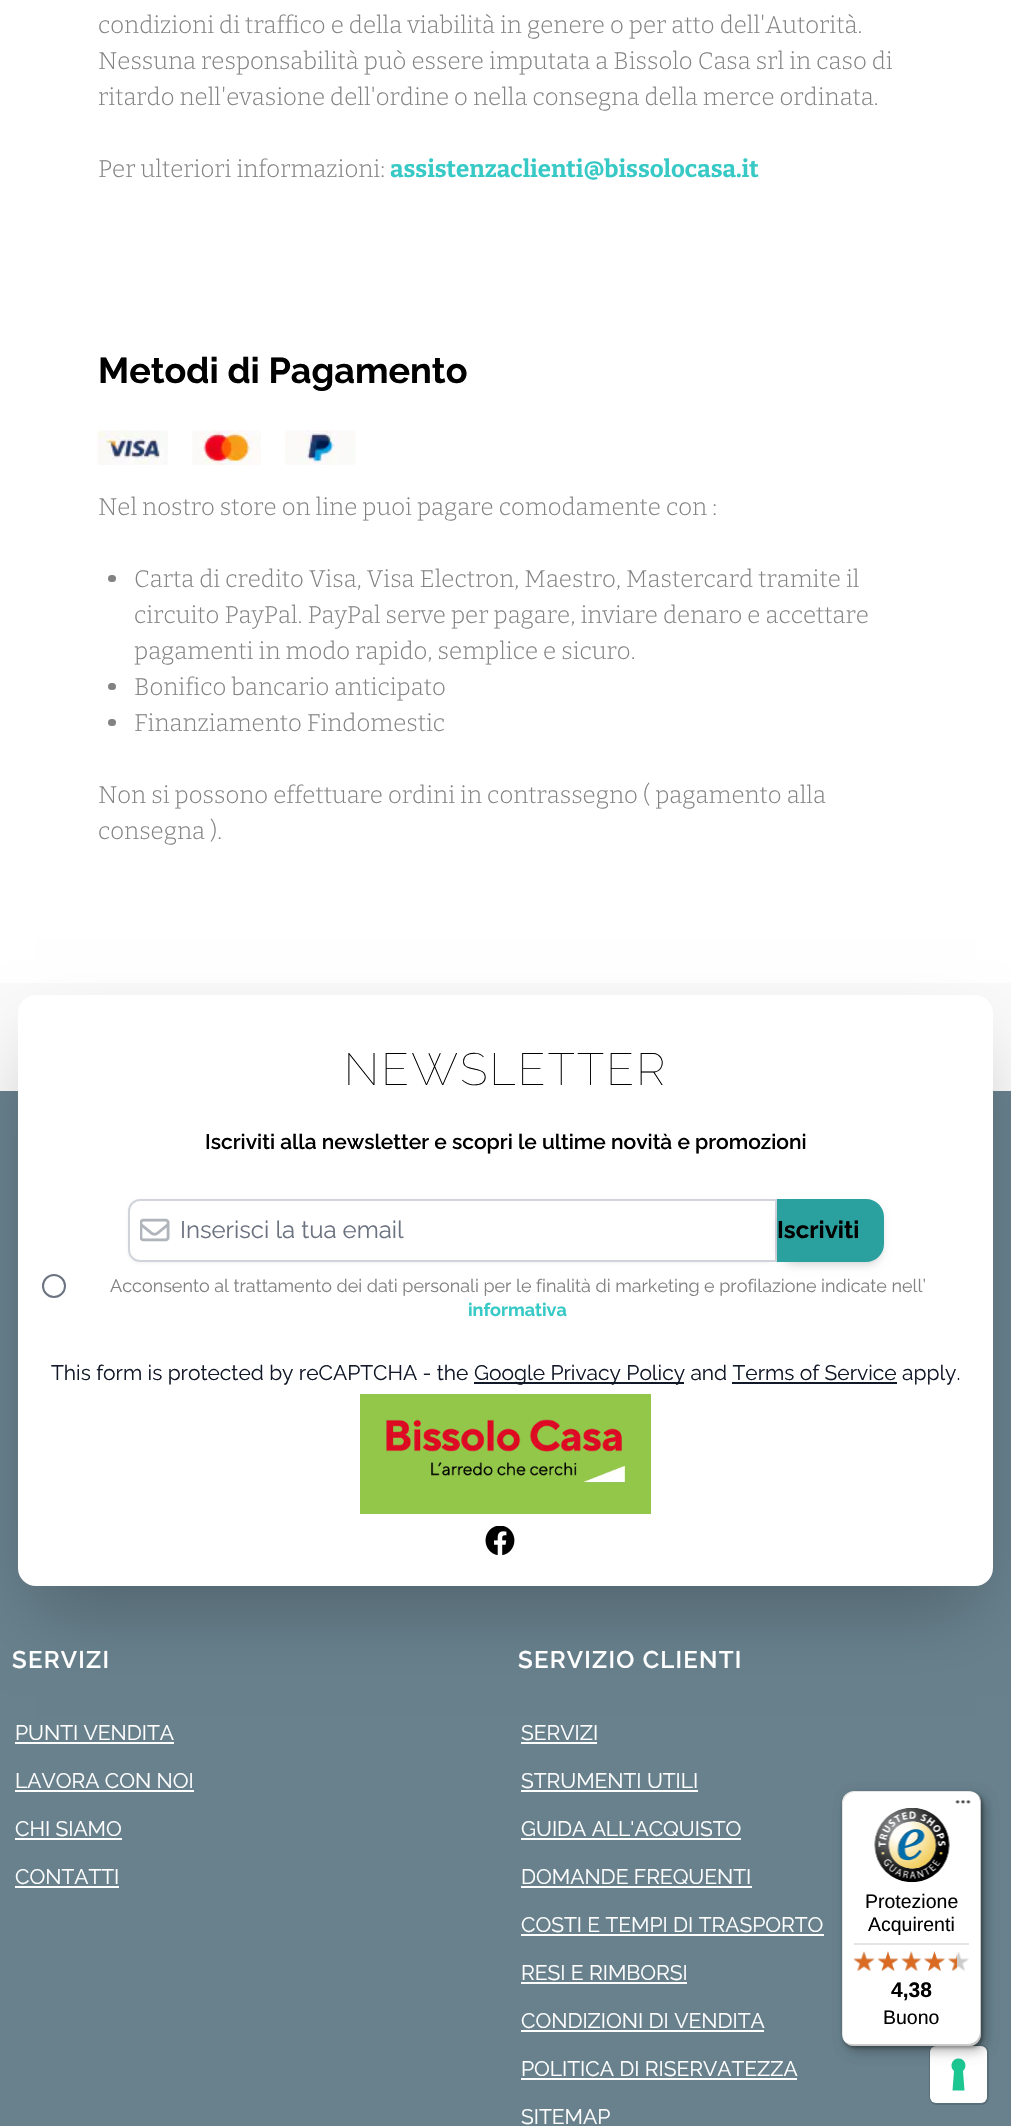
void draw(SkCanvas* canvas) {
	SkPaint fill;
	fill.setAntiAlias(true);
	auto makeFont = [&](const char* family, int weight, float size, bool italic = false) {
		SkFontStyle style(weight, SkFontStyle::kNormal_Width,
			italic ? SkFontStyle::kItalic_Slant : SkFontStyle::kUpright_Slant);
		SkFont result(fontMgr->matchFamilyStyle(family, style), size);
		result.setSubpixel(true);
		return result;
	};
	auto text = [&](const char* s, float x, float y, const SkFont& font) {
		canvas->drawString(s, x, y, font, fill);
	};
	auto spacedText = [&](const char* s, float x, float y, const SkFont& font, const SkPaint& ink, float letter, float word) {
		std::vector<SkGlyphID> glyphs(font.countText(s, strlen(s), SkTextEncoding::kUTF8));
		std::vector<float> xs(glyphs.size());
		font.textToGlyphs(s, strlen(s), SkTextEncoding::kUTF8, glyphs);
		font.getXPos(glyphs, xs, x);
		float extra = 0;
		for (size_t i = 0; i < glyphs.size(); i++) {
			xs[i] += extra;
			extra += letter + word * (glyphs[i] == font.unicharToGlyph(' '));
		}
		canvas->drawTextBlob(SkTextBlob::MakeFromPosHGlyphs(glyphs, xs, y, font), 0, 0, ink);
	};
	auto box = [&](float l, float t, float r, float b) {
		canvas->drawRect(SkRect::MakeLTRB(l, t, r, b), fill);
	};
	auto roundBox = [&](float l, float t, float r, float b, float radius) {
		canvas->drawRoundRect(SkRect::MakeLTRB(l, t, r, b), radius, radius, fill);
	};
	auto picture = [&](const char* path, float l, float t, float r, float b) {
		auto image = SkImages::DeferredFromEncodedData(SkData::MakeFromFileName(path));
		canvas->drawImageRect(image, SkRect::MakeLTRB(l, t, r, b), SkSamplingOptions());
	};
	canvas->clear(0xFFFAFAFA);
	fill.setColor(0xFFFFFFFF);
	box(0, 0, 1011, 983);
	picture("image0.png", 97, 430, 356, 465);
	fill.setColor(0xFF828282);
	roundBox(108, 575, 116, 582, 3.5f);
	roundBox(108, 683, 116, 690, 3.5f);
	roundBox(108, 719, 116, 726, 3.5f);
	fill.setColor(0xFF68818D);
	box(0, 1091, 1011, 2126);
	fill.setColor(0x40000000);
	fill.setMaskFilter(SkMaskFilter::MakeBlur(kNormal_SkBlurStyle, 37.5f));
	canvas->drawRect(SkRect::MakeLTRB(36, 1050, 975, 1605), fill);
	fill.setMaskFilter(nullptr);
	fill.setColor(0xFFFFFFFF);
	roundBox(18, 995, 993, 1586, 18);
	fill.setColor(0x0D000000);
	fill.setMaskFilter(SkMaskFilter::MakeBlur(kNormal_SkBlurStyle, 1.5f));
	canvas->drawRoundRect(SkRect::MakeLTRB(128, 1200, 777, 1263), 12, 12, fill);
	fill.setMaskFilter(nullptr);
	fill.setColor(0xFFFFFFFF);
	canvas->drawPath(SkPathBuilder().moveTo(140, 1199).lineTo(777, 1199).lineTo(777, 1262).lineTo(140, 1262).cubicTo(133.5f, 1262, 128, 1256.5f, 128, 1250).lineTo(128, 1211).cubicTo(128, 1204.5f, 133.5f, 1199, 140, 1199).close().detach(), fill);
	picture("image1.png", 140, 1218, 170, 1242);
	fill.setStyle(SkPaint::kStroke_Style);
	fill.setStrokeWidth(2);
	fill.setColor(0xFFD1D5DB);
	canvas->drawPath(SkPathBuilder().moveTo(140, 1200).lineTo(776, 1200).lineTo(776, 1261).lineTo(140, 1261).cubicTo(134, 1261, 129, 1256, 129, 1250).lineTo(129, 1211).cubicTo(129, 1205, 134, 1200, 140, 1200).close().detach(), fill);
	fill.setStyle(SkPaint::kFill_Style);
	fill.setColor(0x1A000000);
	fill.setMaskFilter(SkMaskFilter::MakeBlur(kNormal_SkBlurStyle, 3));
	canvas->drawRoundRect(SkRect::MakeLTRB(780, 1205, 881, 1262), 15, 15, fill);
	fill.setMaskFilter(nullptr);
	fill.setMaskFilter(SkMaskFilter::MakeBlur(kNormal_SkBlurStyle, 4.5f));
	canvas->drawRoundRect(SkRect::MakeLTRB(779, 1206, 882, 1266), 17, 17, fill);
	fill.setMaskFilter(nullptr);
	fill.setColor(0xFF2BA19F);
	canvas->drawPath(SkPathBuilder().moveTo(777, 1199).lineTo(866, 1199).cubicTo(876, 1199, 884, 1207, 884, 1217).lineTo(884, 1244).cubicTo(884, 1254, 876, 1262, 866, 1262).lineTo(777, 1262).close().detach(), fill);
	fill.setStyle(SkPaint::kStroke_Style);
	fill.setColor(0xFF6B7280);
	canvas->drawCircle(54, 1286, 11, fill);
	fill.setStyle(SkPaint::kFill_Style);
	fill.setColor(0xFF111827);
	box(474, 1382, 684, 1384);
	box(732, 1382, 897, 1384);
	fill.setColor(0xFF92C749);
	box(360, 1394, 651, 1514);
	picture("image2.png", 386, 1419, 626, 1483);
	picture("image3.png", 485, 1526, 515, 1556);
	fill.setColor(0xFFFFFFFF);
	box(15, 1742, 174, 1744);
	box(15, 1790, 194, 1792);
	box(15, 1838, 122, 1840);
	box(15, 1886, 119, 1888);
	box(521, 1742, 597, 1744);
	box(521, 1790, 698, 1792);
	box(521, 1838, 741, 1840);
	box(521, 1886, 752, 1888);
	box(521, 1934, 824, 1936);
	box(521, 1982, 687, 1984);
	box(521, 2030, 764, 2032);
	box(521, 2078, 797, 2080);
	fill.setStyle(SkPaint::kStroke_Style);
	fill.setColor(0xFF586E78);
	canvas->drawRoundRect(SkRect::MakeLTRB(930, 2046, 988, 2104), 7, 7, fill);
	fill.setStyle(SkPaint::kFill_Style);
	fill.setColor(0xFFFFFFFF);
	roundBox(930, 2046, 987, 2103, 6);
	fill.setColor(0xFF1CC691);
	canvas->drawPath(SkPathBuilder(SkPathFillType::kEvenOdd).moveTo(958.5f, 2058.5f).cubicTo(965, 2058.5f, 968, 2066.5f, 963, 2071).lineTo(964.5f, 2090.5f).lineTo(952.5f, 2090.5f).lineTo(954, 2071).cubicTo(949, 2066.5f, 952, 2058.5f, 958.5f, 2058.5f).close().detach(), fill);
	fill.setColor(0x26000000);
	fill.setMaskFilter(SkMaskFilter::MakeBlur(kNormal_SkBlurStyle, 6));
	canvas->drawRoundRect(SkRect::MakeLTRB(846, 1796, 986, 2051), 12, 12, fill);
	fill.setMaskFilter(nullptr);
	fill.setMaskFilter(SkMaskFilter::MakeBlur(kNormal_SkBlurStyle, 1.5f));
	canvas->drawRoundRect(SkRect::MakeLTRB(843, 1793, 983, 2048), 12, 12, fill);
	fill.setMaskFilter(nullptr);
	fill.setColor(0x1A000000);
	canvas->drawPath(SkPathBuilder().moveTo(855, 1792).lineTo(970, 1792).cubicTo(973, 1792, 976, 1793, 978, 1795).cubicTo(976, 1793, 973, 1791, 969, 1791).lineTo(854, 1791).cubicTo(847, 1791, 842, 1796, 842, 1803).lineTo(842, 2034).cubicTo(842, 2036, 843, 2039, 844, 2041).lineTo(843, 2036).lineTo(843, 1804).cubicTo(843, 1798, 848, 1792, 855, 1792).close().detach(), fill);
	fill.setColor(0x33000000);
	canvas->drawPath(SkPathBuilder().moveTo(845, 2042).cubicTo(847, 2044, 850, 2046, 854, 2046).lineTo(969, 2046).cubicTo(976, 2046, 981, 2041, 981, 2034).lineTo(981, 1803).cubicTo(981, 1799, 979, 1796, 977, 1794).cubicTo(979, 1796, 980, 1799, 980, 1802).lineTo(980, 2032).cubicTo(980, 2039, 974, 2044, 968, 2044).lineTo(852, 2044).cubicTo(849, 2044, 847, 2043, 845, 2042).close().detach(), fill);
	fill.setColor(0x33323232);
	canvas->drawPath(SkPathBuilder().moveTo(846, 2043).cubicTo(848, 2045, 851, 2046, 854, 2046).lineTo(969, 2046).cubicTo(976, 2046, 981, 2041, 981, 2034).lineTo(981, 1803).cubicTo(981, 1800, 980, 1797, 978, 1795).cubicTo(979, 1797, 980, 1799, 980, 1802).lineTo(980, 2033).cubicTo(980, 2040, 975, 2045, 968, 2045).lineTo(853, 2045).cubicTo(850, 2045, 848, 2044, 846, 2043).close().detach(), fill);
	fill.setColor(0x4DFFFFFF);
	canvas->drawPath(SkPathBuilder().moveTo(846, 2043).cubicTo(848, 2045, 851, 2046, 854, 2046).lineTo(969, 2046).cubicTo(976, 2046, 981, 2041, 981, 2034).lineTo(981, 1803).cubicTo(981, 1799, 979, 1796, 977, 1794).cubicTo(979, 1796, 980, 1799, 980, 1802).lineTo(980, 2033).cubicTo(980, 2040, 975, 2045, 968, 2045).lineTo(853, 2045).cubicTo(850, 2045, 848, 2044, 846, 2043).close().detach(), fill);
	fill.setColor(0x26000000);
	fill.setMaskFilter(SkMaskFilter::MakeBlur(kNormal_SkBlurStyle, 6));
	canvas->drawRoundRect(SkRect::MakeLTRB(846, 1796, 986, 2051), 12, 12, fill);
	fill.setMaskFilter(nullptr);
	fill.setMaskFilter(SkMaskFilter::MakeBlur(kNormal_SkBlurStyle, 1.5f));
	canvas->drawRoundRect(SkRect::MakeLTRB(843, 1793, 983, 2048), 12, 12, fill);
	fill.setMaskFilter(nullptr);
	fill.setColor(0xFFFFFFFF);
	roundBox(842, 1791, 981, 2046, 12);
	fill.setColor(0x1A000000);
	canvas->drawPath(SkPathBuilder().moveTo(855, 1792).lineTo(970, 1792).cubicTo(973, 1792, 976, 1793, 978, 1795).cubicTo(976, 1793, 973, 1791, 969, 1791).lineTo(854, 1791).cubicTo(847, 1791, 842, 1796, 842, 1803).lineTo(842, 2034).cubicTo(842, 2036, 843, 2039, 844, 2041).lineTo(843, 2036).lineTo(843, 1804).cubicTo(843, 1798, 848, 1792, 855, 1792).close().detach(), fill);
	fill.setColor(0x33000000);
	canvas->drawPath(SkPathBuilder().moveTo(845, 2042).cubicTo(847, 2044, 850, 2046, 854, 2046).lineTo(969, 2046).cubicTo(976, 2046, 981, 2041, 981, 2034).lineTo(981, 1803).cubicTo(981, 1799, 979, 1796, 977, 1794).cubicTo(979, 1796, 980, 1799, 980, 1802).lineTo(980, 2032).cubicTo(980, 2039, 974, 2044, 968, 2044).lineTo(852, 2044).cubicTo(849, 2044, 847, 2043, 845, 2042).close().detach(), fill);
	fill.setColor(0x33323232);
	canvas->drawPath(SkPathBuilder().moveTo(846, 2043).cubicTo(848, 2045, 851, 2046, 854, 2046).lineTo(969, 2046).cubicTo(976, 2046, 981, 2041, 981, 2034).lineTo(981, 1803).cubicTo(981, 1800, 980, 1797, 978, 1795).cubicTo(979, 1797, 980, 1799, 980, 1802).lineTo(980, 2033).cubicTo(980, 2040, 975, 2045, 968, 2045).lineTo(853, 2045).cubicTo(850, 2045, 848, 2044, 846, 2043).close().detach(), fill);
	fill.setColor(0x4DFFFFFF);
	canvas->drawPath(SkPathBuilder().moveTo(846, 2043).cubicTo(848, 2045, 851, 2046, 854, 2046).lineTo(969, 2046).cubicTo(976, 2046, 981, 2041, 981, 2034).lineTo(981, 1803).cubicTo(981, 1799, 979, 1796, 977, 1794).cubicTo(979, 1796, 980, 1799, 980, 1802).lineTo(980, 2033).cubicTo(980, 2040, 975, 2045, 968, 2045).lineTo(853, 2045).cubicTo(850, 2045, 848, 2044, 846, 2043).close().detach(), fill);
	picture("image4.png", 955, 1800, 971, 1804);
	picture("image5.png", 874, 1808, 950, 1883);
	fill.setColor(0xFFE5E5E5);
	box(854, 1943, 969, 1945);
	picture("image11.png", 854, 1952, 874, 1971);
	picture("image6.png", 853, 1951, 875, 1971);
	picture("image12.png", 878, 1951, 898, 1971);
	picture("image7.png", 878, 1951, 898, 1971);
	picture("image13.png", 901, 1951, 921, 1971);
	picture("image8.png", 901, 1951, 921, 1971);
	picture("image14.png", 924, 1951, 945, 1971);
	picture("image9.png", 924, 1951, 945, 1971);
	picture("image15.png", 948, 1952, 969, 1971);
	picture("image10.png", 948, 1954, 957, 1971);
	auto font1 = makeFont("Bitter", 300, 24);
	fill.setColor(0xFF828282);
	text("condizioni di traffico e della viabilità in genere o per atto dell'Autorità.", 98, 33, font1);
	text("Nessuna responsabilità può essere imputata a Bissolo Casa srl in caso di", 98, 69, font1);
	text("ritardo nell'evasione dell'ordine o nella consegna della merce ordinata.", 98, 105, font1);
	text("Per ulteriori informazioni:", 98, 177, font1);
	auto font2 = makeFont("Bitter", 700, 24);
	fill.setColor(0xFF36C9C6);
	text("assistenzaclienti@bissolocasa.it", 390, 177, font2);
	auto font3 = makeFont("Raleway", 700, 36);
	fill.setColor(0xFF000000);
	text("Metodi di Pagamento", 98, 383, font3);
	fill.setColor(0xFF828282);
	text("Nel nostro store on line puoi pagare comodamente con :", 98, 515, font1);
	text("Carta di credito Visa, Visa Electron, Maestro, Mastercard tramite il", 134, 587, font1);
	text("circuito PayPal. PayPal serve per pagare, inviare denaro e accettare", 134, 623, font1);
	text("pagamenti in modo rapido, semplice e sicuro.", 134, 659, font1);
	text("Bonifico bancario anticipato", 134, 695, font1);
	text("Finanziamento Findomestic", 134, 731, font1);
	text("Non si possono effettuare ordini in contrassegno ( pagamento alla", 98, 803, font1);
	text("consegna ).", 98, 839, font1);
	auto font4 = makeFont("Raleway", 100, 45);
	fill.setColor(0xFF000000);
	spacedText("NEWSLETTER", 344, 1085, font4, fill, 2.25f, 0);
	auto font5 = makeFont("Raleway", 600, 21);
	text("Iscriviti alla newsletter e scopri le ultime novità e promozioni", 205, 1149, font5);
	auto font6 = makeFont("Raleway", 400, 24);
	fill.setColor(0xFF6B7280);
	text("Inserisci la tua email", 180, 1238, font6);
	auto font7 = makeFont("Raleway", 700, 24);
	fill.setColor(0xFF000000);
	text("Iscriviti", 777, 1238, font7);
	auto font8 = makeFont("Raleway", 400, 18);
	fill.setColor(0xFF828282);
	text("Acconsento al trattamento dei dati personali per le finalità di marketing e profilazione indicate nell’", 110, 1292, font8);
	auto font9 = makeFont("Raleway", 700, 18);
	fill.setColor(0xFF36C9C6);
	text("informativa", 468, 1316, font9);
	auto font10 = makeFont("Raleway", 400, 21);
	fill.setColor(0xFF111827);
	text("This form is protected by reCAPTCHA - the", 51, 1380, font10);
	text("Google Privacy Policy and Terms of Service apply.", 474, 1380, font10);
	auto font11 = makeFont("Raleway", 600, 24);
	fill.setColor(0xFFFFFFFF);
	spacedText("SERVIZI", 12, 1668, font11, fill, 1.25f, 0);
	text("PUNTI VENDITA", 15, 1740, font10);
	text("LAVORA CON NOI", 15, 1788, font10);
	text("CHI SIAMO", 15, 1836, font10);
	text("CONTATTI", 15, 1884, font10);
	spacedText("SERVIZIO CLIENTI", 518, 1668, font11, fill, 1.25f, 0);
	text("SERVIZI", 521, 1740, font10);
	text("STRUMENTI UTILI", 521, 1788, font10);
	text("GUIDA ALL'ACQUISTO", 521, 1836, font10);
	text("DOMANDE FREQUENTI", 521, 1884, font10);
	text("COSTI E TEMPI DI TRASPORTO", 521, 1932, font10);
	text("RESI E RIMBORSI", 521, 1980, font10);
	text("CONDIZIONI DI VENDITA", 521, 2028, font10);
	text("POLITICA DI RISERVATEZZA", 521, 2076, font10);
	text("SITEMAP", 521, 2124, font10);
	auto font12 = makeFont("Liberation Sans", 400, 19.5f);
	fill.setColor(0xFF000000);
	text("Protezione", 865, 1908, font12);
	text("Acquirenti", 868, 1931, font12);
	auto font13 = makeFont("Liberation Sans", 700, 21);
	text("4,38", 891, 1997, font13);
	text("Buono", 883, 2024, font12);
}
